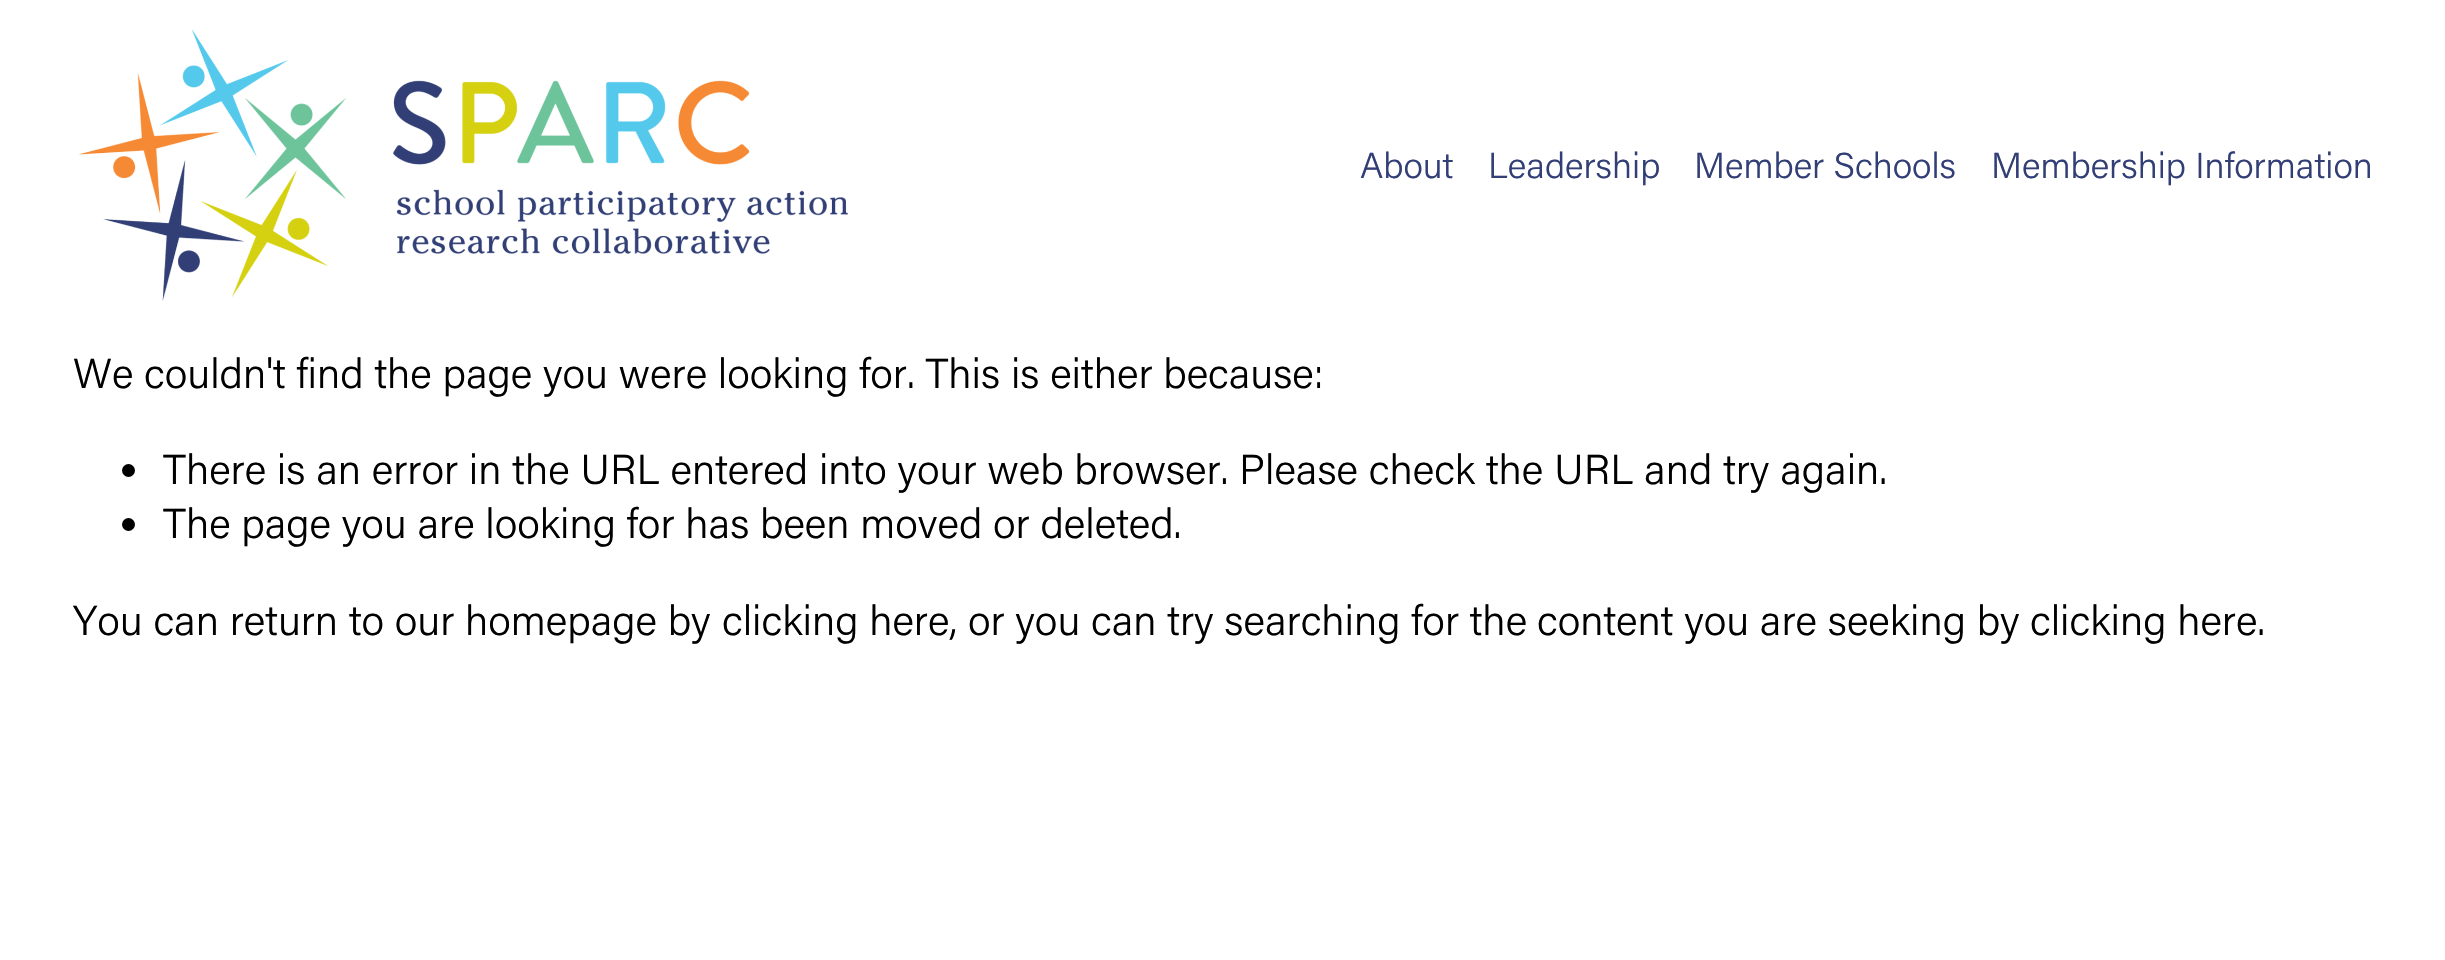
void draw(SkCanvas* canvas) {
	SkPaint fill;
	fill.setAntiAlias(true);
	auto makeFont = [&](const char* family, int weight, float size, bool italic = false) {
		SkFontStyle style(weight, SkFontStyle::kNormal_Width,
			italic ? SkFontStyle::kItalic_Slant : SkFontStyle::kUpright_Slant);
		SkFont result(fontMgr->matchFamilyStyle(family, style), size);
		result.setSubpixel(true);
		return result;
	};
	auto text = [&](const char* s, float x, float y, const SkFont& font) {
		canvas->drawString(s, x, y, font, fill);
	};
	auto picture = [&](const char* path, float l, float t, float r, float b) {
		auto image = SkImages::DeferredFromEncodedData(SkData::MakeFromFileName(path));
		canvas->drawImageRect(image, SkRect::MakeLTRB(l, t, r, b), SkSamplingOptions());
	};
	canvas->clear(0xFFFFFFFF);
	picture("image0.png", 78, 29, 849, 301);
	fill.setColor(0xFF000000);
	canvas->drawCircle(128.5f, 470.5f, 6.5f, fill);
	canvas->drawCircle(128.5f, 524.5f, 6.5f, fill);
	auto font1 = makeFont("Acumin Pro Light", 300, 36);
	fill.setColor(0xFF323F76);
	text("About", 1360, 178, font1);
	text("Leadership", 1488, 178, font1);
	text("Member Schools", 1694, 178, font1);
	text("Membership Information", 1991, 178, font1);
	auto font2 = makeFont("Acumin Pro Light", 300, 41.85f);
	fill.setColor(0xFF000000);
	text("We couldn't find the page you were looking for. This is either because:", 73, 388, font2);
	text("There is an error in the URL entered into your web browser. Please check the URL and try again.", 163, 484, font2);
	text("The page you are looking for has been moved or deleted.", 163, 538, font2);
	text("You can return to our homepage by", 73, 635, font2);
	text("clicking here, or you can try searching for the", 722, 635, font2);
	text("content you are seeking by", 1537, 635, font2);
	text("clicking here.", 2030, 635, font2);
}
